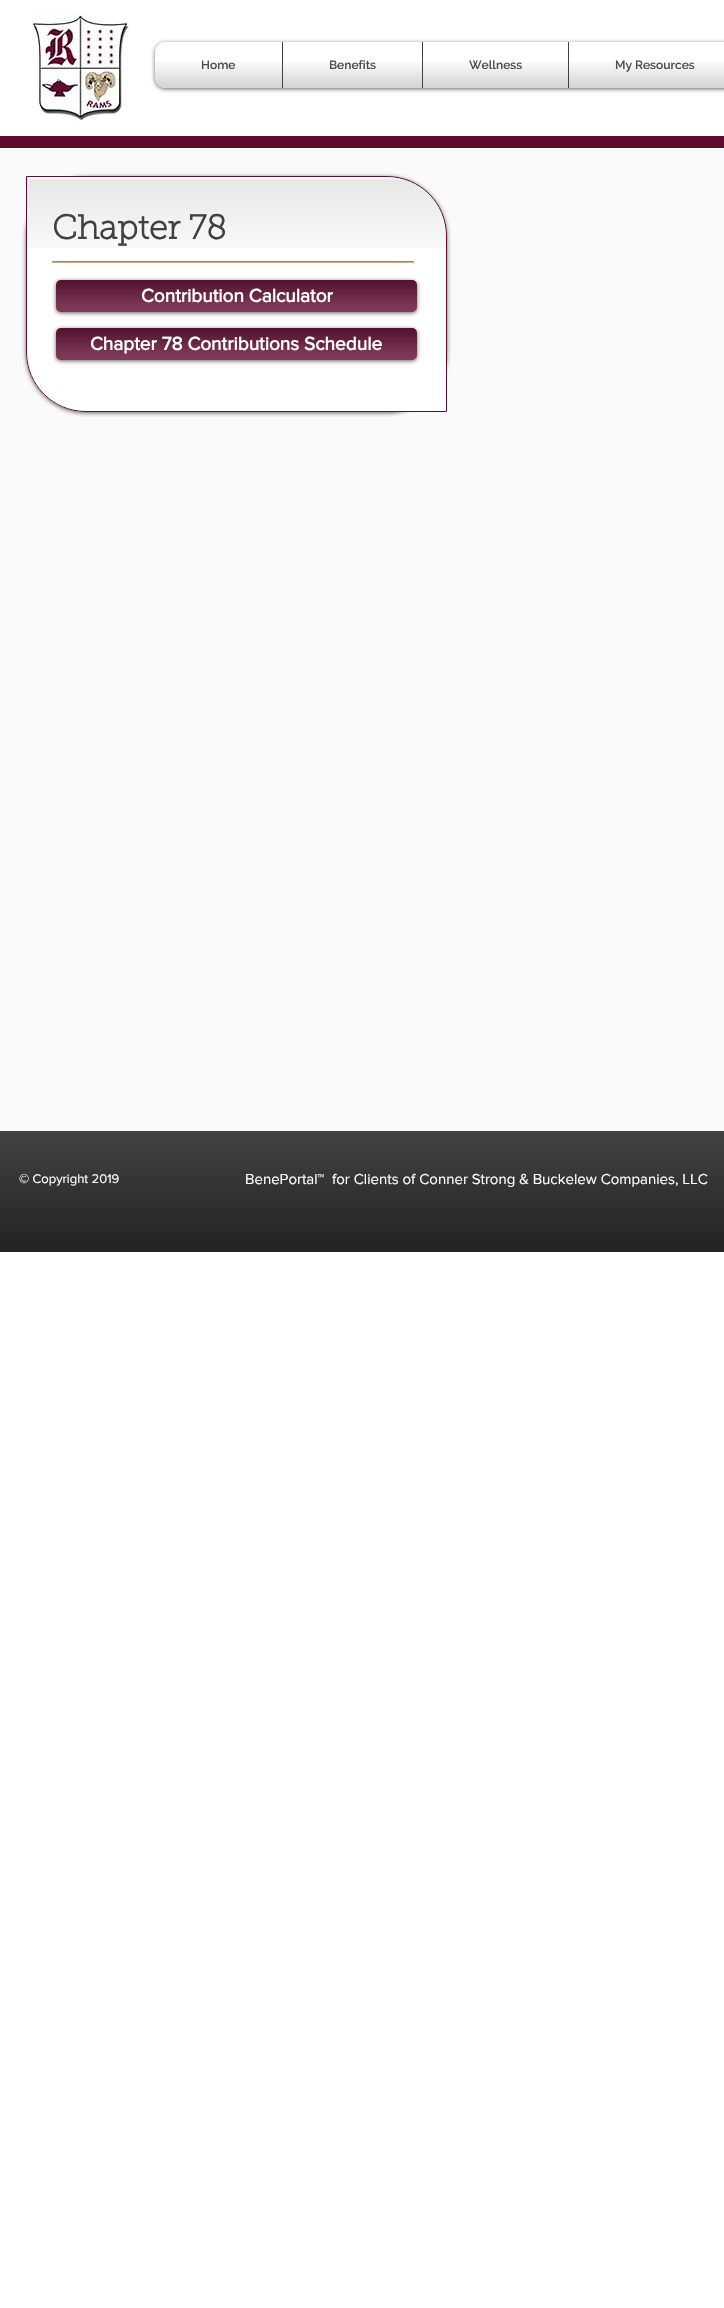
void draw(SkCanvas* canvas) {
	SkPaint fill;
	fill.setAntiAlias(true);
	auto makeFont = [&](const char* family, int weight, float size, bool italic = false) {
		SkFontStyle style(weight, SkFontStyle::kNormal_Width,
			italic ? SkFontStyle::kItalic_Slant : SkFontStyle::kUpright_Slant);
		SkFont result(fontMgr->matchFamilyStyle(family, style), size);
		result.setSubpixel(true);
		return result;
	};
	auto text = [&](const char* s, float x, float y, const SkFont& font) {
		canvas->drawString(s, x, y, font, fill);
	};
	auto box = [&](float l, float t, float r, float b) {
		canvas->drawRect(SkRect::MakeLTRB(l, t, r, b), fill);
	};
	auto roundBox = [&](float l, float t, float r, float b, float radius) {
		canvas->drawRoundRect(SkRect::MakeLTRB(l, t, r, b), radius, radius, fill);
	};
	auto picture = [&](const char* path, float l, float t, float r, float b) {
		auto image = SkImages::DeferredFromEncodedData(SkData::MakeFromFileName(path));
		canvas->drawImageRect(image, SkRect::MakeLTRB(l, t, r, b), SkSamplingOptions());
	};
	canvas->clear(0xFFFFFFFF);
	picture("image0.png", 33, 13, 129, 121);
	fill.setColor(0x99000000);
	fill.setMaskFilter(SkMaskFilter::MakeBlur(kNormal_SkBlurStyle, 2));
	canvas->drawRoundRect(SkRect::MakeLTRB(155, 43, 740, 89), 10, 10, fill);
	fill.setMaskFilter(nullptr);
	picture("image1.png", 155, 78, 165, 88);
	fill.setColor(0xFFFFFFFF);
	canvas->drawPath(SkPathBuilder().moveTo(165, 42).lineTo(282, 42).lineTo(282, 88).lineTo(165, 88).cubicTo(159.5f, 88, 155, 83.5f, 155, 78).lineTo(155, 52).cubicTo(155, 46.5f, 159.5f, 42, 165, 42).close().detach(), fill);
	box(283, 42, 422, 88);
	fill.setColor(0xFF414141);
	box(282, 42, 283, 88);
	fill.setColor(0xFFFFFFFF);
	box(423, 42, 568, 88);
	fill.setColor(0xFF414141);
	box(422, 42, 423, 88);
	fill.setColor(0xFFFFFFFF);
	box(569, 42, 724, 88);
	fill.setColor(0xFF414141);
	box(568, 42, 569, 88);
	fill.setColor(0xFF5E0C30);
	box(0, 136, 724, 148);
	fill.setColor(0xFFFAFAFA);
	box(0, 148, 724, 1131);
	canvas->save();
	canvas->clipPath(SkPathBuilder(SkPathFillType::kEvenOdd).moveTo(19, 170).lineTo(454, 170).lineTo(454, 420).lineTo(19, 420).close().moveTo(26, 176).lineTo(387, 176).cubicTo(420, 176, 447, 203, 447, 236).lineTo(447, 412).lineTo(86, 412).cubicTo(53, 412, 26, 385, 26, 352).close().detach(), true);
	fill.setColor(0x99000000);
	fill.setMaskFilter(SkMaskFilter::MakeBlur(kNormal_SkBlurStyle, 2));
	canvas->drawRoundRect(SkRect::MakeLTRB(26, 177, 447, 413), 60, 60, fill);
	fill.setMaskFilter(nullptr);
	canvas->restore();
	fill.setColor(0xE6FFFFFF);
	canvas->drawPath(SkPathBuilder().moveTo(26, 176).lineTo(387, 176).cubicTo(420, 176, 447, 203, 447, 236).lineTo(447, 412).lineTo(86, 412).cubicTo(53, 412, 26, 385, 26, 352).close().detach(), fill);
	picture("image10.png", 27, 179, 447, 248);
	fill.setStyle(SkPaint::kStroke_Style);
	fill.setStrokeWidth(1);
	fill.setColor(0xFF5E0C30);
	canvas->drawPath(SkPathBuilder().moveTo(26.5f, 176.5f).lineTo(387, 176.5f).cubicTo(420, 176.5f, 446.5f, 203, 446.5f, 236).lineTo(446.5f, 411.5f).lineTo(86, 411.5f).cubicTo(53, 411.5f, 26.5f, 385, 26.5f, 352).close().detach(), fill);
	fill.setStyle(SkPaint::kFill_Style);
	fill.setColor(0xFFCEAF80);
	roundBox(52, 261, 414, 263, 1);
	fill.setColor(0x40000000);
	canvas->drawPath(SkPathBuilder().moveTo(53, 262).lineTo(413, 262).lineTo(414, 263).cubicTo(414, 262, 414, 261, 413, 261).lineTo(53, 261).cubicTo(52, 261, 52, 262, 52, 263).close().detach(), fill);
	fill.setColor(0x99000000);
	fill.setMaskFilter(SkMaskFilter::MakeBlur(kNormal_SkBlurStyle, 2));
	canvas->drawRoundRect(SkRect::MakeLTRB(56, 281, 417, 313), 5, 5, fill);
	fill.setMaskFilter(nullptr);
	fill.setColor(0xFF5E0C30);
	roundBox(56, 280, 417, 312, 5);
	picture("image11.png", 56, 280, 417, 302);
	picture("image12.png", 56, 280, 417, 312);
	fill.setColor(0x99000000);
	fill.setMaskFilter(SkMaskFilter::MakeBlur(kNormal_SkBlurStyle, 2));
	canvas->drawRoundRect(SkRect::MakeLTRB(56, 329, 417, 361), 5, 5, fill);
	fill.setMaskFilter(nullptr);
	fill.setColor(0xFF5E0C30);
	roundBox(56, 328, 417, 360, 5);
	picture("image11.png", 56, 328, 417, 350);
	picture("image12.png", 56, 328, 417, 360);
	fill.setColor(0xFF000000);
	box(0, 1131, 724, 1252);
	picture("image13.png", 0, 1131, 724, 1252);
	auto font1 = makeFont("Raleway", 600, 12);
	fill.setColor(0xFF414141);
	text("Home", 201, 69, font1);
	picture("image2.png", 202, 60, 236, 69);
	picture("image3.png", 155, 62, 282, 88);
	text("Benefits", 329, 69, font1);
	picture("image4.png", 330, 60, 376, 69);
	picture("image5.png", 283, 62, 422, 88);
	text("Wellness", 469, 69, font1);
	picture("image6.png", 469, 60, 522, 69);
	picture("image7.png", 423, 62, 568, 88);
	text("My Resources", 615, 69, font1);
	picture("image8.png", 616, 60, 695, 72);
	picture("image9.png", 569, 62, 724, 88);
	auto font2 = makeFont("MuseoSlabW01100", 700, 34);
	text("Chapter 78", 52, 239, font2);
	auto font3 = makeFont("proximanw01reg", 700, 19);
	fill.setColor(0xFFFFFFFF);
	text("Contribution Calculator", 141, 302, font3);
	text("Chapter 78 Contributions Schedule", 90, 350, font3);
	auto font4 = makeFont("proximanw01reg", 400, 13);
	text("© Copyright 2019", 19, 1183, font4);
	auto font5 = makeFont("proximanw01reg", 400, 15);
	text("BenePortal™", 245, 1184, font5);
	text("for Clients of Conner Strong & Buckelew Companies, LLC", 332, 1184, font5);
}
